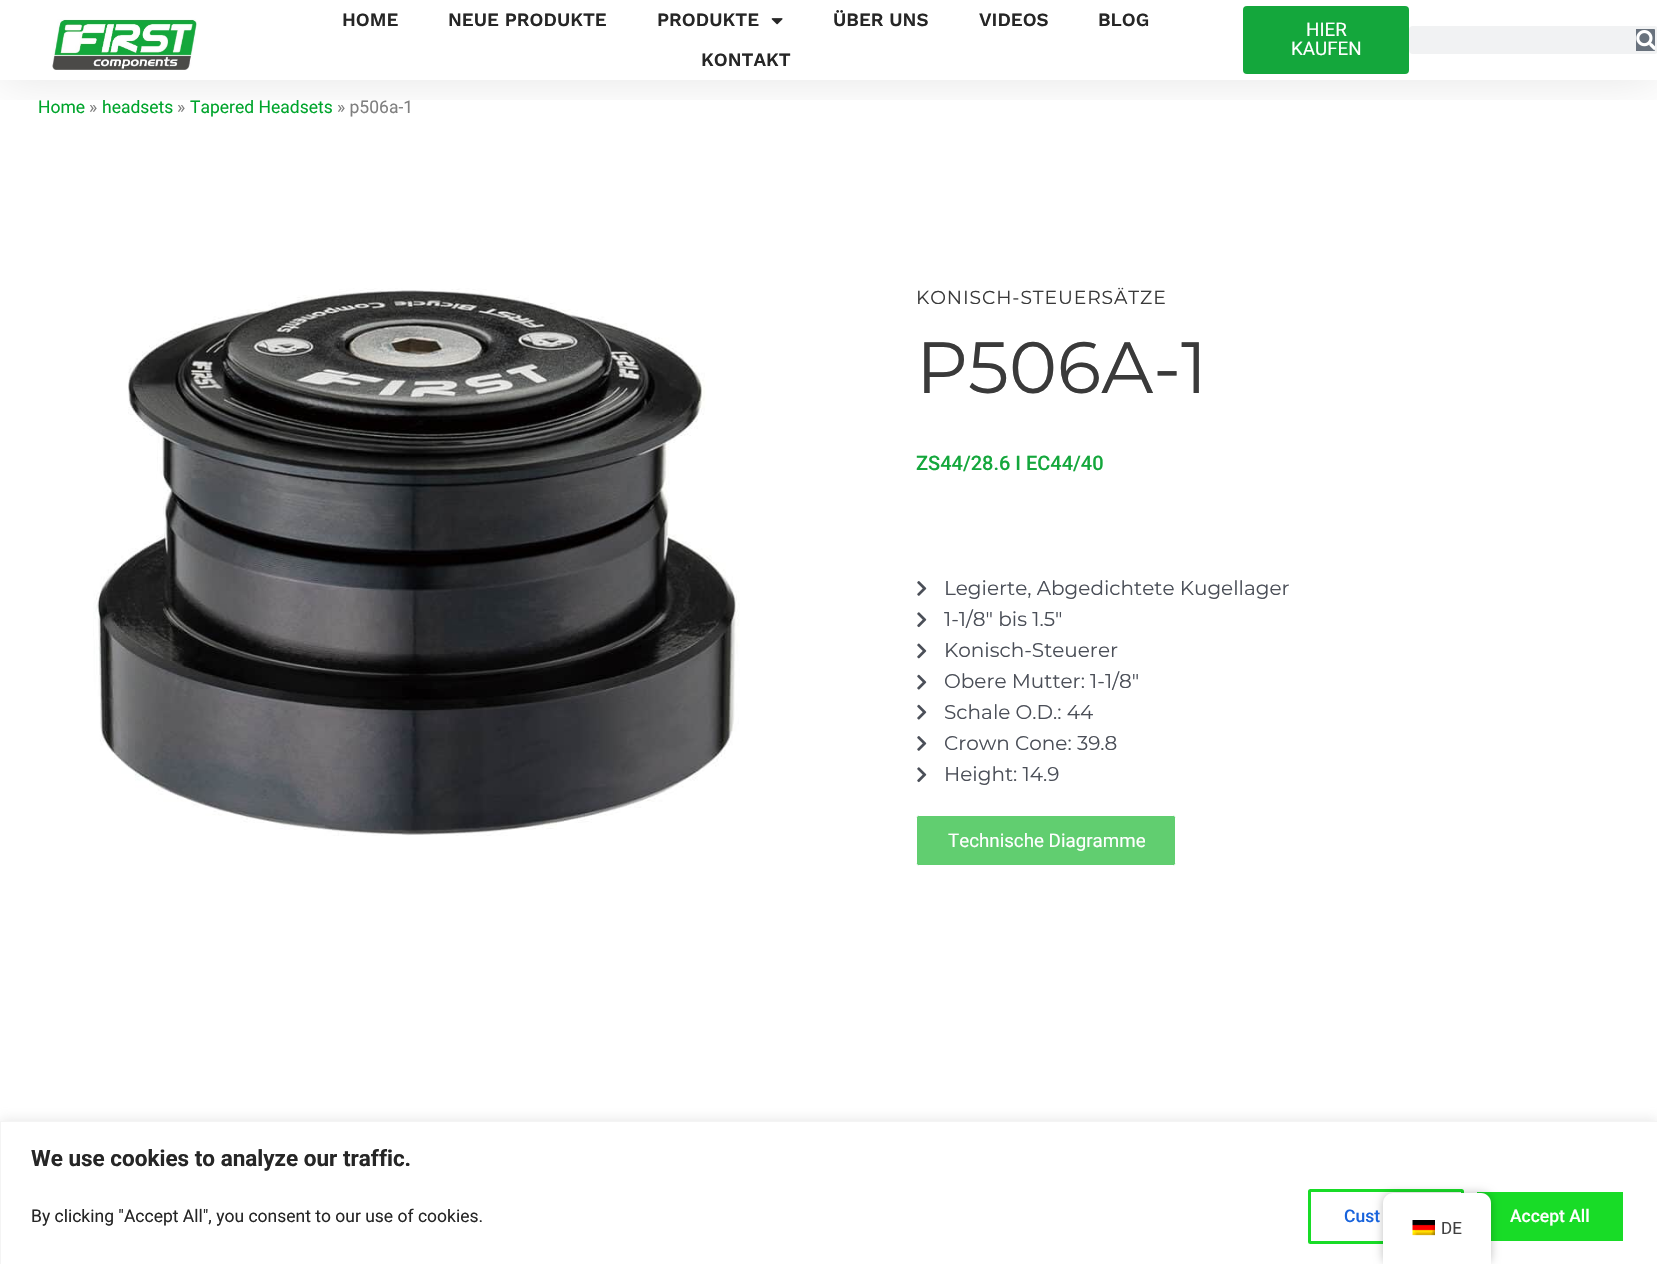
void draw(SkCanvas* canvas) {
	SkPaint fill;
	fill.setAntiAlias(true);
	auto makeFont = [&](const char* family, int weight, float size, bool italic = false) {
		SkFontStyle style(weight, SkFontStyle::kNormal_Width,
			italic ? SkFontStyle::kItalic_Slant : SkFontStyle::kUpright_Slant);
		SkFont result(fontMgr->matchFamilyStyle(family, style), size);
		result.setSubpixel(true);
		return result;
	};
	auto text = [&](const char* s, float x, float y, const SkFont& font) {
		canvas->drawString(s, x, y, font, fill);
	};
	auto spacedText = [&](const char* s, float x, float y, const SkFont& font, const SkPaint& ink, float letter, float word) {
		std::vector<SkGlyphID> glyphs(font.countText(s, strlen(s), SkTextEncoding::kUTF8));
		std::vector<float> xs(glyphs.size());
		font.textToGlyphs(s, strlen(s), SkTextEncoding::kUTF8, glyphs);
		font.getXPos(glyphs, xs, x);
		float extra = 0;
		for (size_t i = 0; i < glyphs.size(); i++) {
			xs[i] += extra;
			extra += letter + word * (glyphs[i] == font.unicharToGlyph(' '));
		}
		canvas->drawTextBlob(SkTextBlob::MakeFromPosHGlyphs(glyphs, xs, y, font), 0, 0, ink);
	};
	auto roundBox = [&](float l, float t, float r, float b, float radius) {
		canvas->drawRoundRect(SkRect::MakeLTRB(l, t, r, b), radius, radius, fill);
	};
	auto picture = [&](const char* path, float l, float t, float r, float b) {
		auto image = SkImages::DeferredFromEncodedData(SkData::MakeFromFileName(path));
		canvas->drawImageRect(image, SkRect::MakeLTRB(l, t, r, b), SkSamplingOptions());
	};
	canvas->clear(0xFFFFFFFF);
	canvas->save();
	canvas->clipRect(SkRect::MakeLTRB(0, 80, 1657, 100));
	fill.setColor(0x1A000000);
	fill.setMaskFilter(SkMaskFilter::MakeBlur(kNormal_SkBlurStyle, 24));
	canvas->drawRect(SkRect::MakeLTRB(0, 0, 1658, 80), fill);
	fill.setMaskFilter(nullptr);
	canvas->restore();
	picture("image0.png", 52, 19, 197, 70);
	picture("image1.png", 771, 18, 783, 25);
	fill.setColor(0xFF14A73C);
	roundBox(1243, 6, 1409, 74, 4);
	fill.setColor(0xFFF1F2F3);
	roundBox(1409, 26, 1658, 54, 4);
	fill.setColor(0xFF69727D);
	canvas->drawPath(SkPathBuilder().moveTo(1636, 29).lineTo(1654, 29).cubicTo(1654.5f, 29, 1655, 29.5f, 1655, 30).lineTo(1655, 50).cubicTo(1655, 50.5f, 1654.5f, 51, 1654, 51).lineTo(1636, 51).close().detach(), fill);
	picture("image2.png", 1636, 30, 1655, 50);
	picture("image3.png", 93, 288, 740, 836);
	picture("image4.png", 917, 581, 927, 596);
	picture("image5.png", 917, 612, 927, 628);
	picture("image6.png", 917, 643, 927, 659);
	picture("image7.png", 917, 674, 927, 690);
	picture("image7.png", 917, 704, 927, 720);
	picture("image4.png", 917, 736, 927, 751);
	picture("image5.png", 917, 767, 927, 783);
	fill.setColor(0xFF61CE70);
	canvas->drawRoundRect(SkRect::MakeLTRB(916.5f, 815.5f, 1175.5f, 865.5f), 2, 2, fill);
	fill.setStyle(SkPaint::kStroke_Style);
	fill.setStrokeWidth(1);
	fill.setColor(0xFFFFFFFF);
	canvas->drawRoundRect(SkRect::MakeLTRB(916.5f, 815.5f, 1175.5f, 865.5f), 2, 2, fill);
	fill.setStyle(SkPaint::kFill_Style);
	fill.setColor(0x4DACABAB);
	fill.setMaskFilter(SkMaskFilter::MakeBlur(kNormal_SkBlurStyle, 6));
	canvas->drawRect(SkRect::MakeLTRB(0, 1120, 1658, 1264), fill);
	fill.setMaskFilter(nullptr);
	fill.setColor(0xFFFFFFFF);
	canvas->drawRect(SkRect::MakeLTRB(0.5f, 1121.5f, 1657.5f, 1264.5f), fill);
	fill.setStyle(SkPaint::kStroke_Style);
	fill.setColor(0xFFF4F4F4);
	canvas->drawRect(SkRect::MakeLTRB(0.5f, 1121.5f, 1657.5f, 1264.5f), fill);
	fill.setStrokeWidth(3);
	fill.setColor(0xFF18DC27);
	canvas->drawRoundRect(SkRect::MakeLTRB(1309.5f, 1190.5f, 1462.5f, 1242.5f), 1, 1, fill);
	fill.setStyle(SkPaint::kFill_Style);
	canvas->drawRoundRect(SkRect::MakeLTRB(1475.5f, 1190.5f, 1624.5f, 1242.5f), 1, 1, fill);
	fill.setStyle(SkPaint::kStroke_Style);
	fill.setColor(0xFFFFFFFF);
	canvas->drawRoundRect(SkRect::MakeLTRB(1475.5f, 1190.5f, 1624.5f, 1242.5f), 1, 1, fill);
	fill.setStyle(SkPaint::kFill_Style);
	fill.setColor(0x40000000);
	fill.setMaskFilter(SkMaskFilter::MakeBlur(kNormal_SkBlurStyle, 5));
	canvas->drawRoundRect(SkRect::MakeLTRB(1383, 1193, 1491, 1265), 10, 10, fill);
	fill.setMaskFilter(nullptr);
	fill.setColor(0xFFFFFFFF);
	canvas->drawPath(SkPathBuilder().moveTo(1393, 1193).lineTo(1481, 1193).cubicTo(1486.5f, 1193, 1491, 1197.5f, 1491, 1203).lineTo(1491, 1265).lineTo(1383, 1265).lineTo(1383, 1203).cubicTo(1383, 1197.5f, 1387.5f, 1193, 1393, 1193).close().detach(), fill);
	picture("image8.png", 1412, 1220, 1435, 1236);
	auto font1 = makeFont("Work Sans", 600, 18.75f);
	fill.setColor(0xFF262626);
	text("HOME", 342, 26, font1);
	text("NEUE PRODUKTE", 448, 26, font1);
	text("PRODUKTE", 657, 26, font1);
	text("ÜBER UNS", 833, 26, font1);
	text("VIDEOS", 979, 26, font1);
	text("BLOG", 1098, 26, font1);
	text("KONTAKT", 701, 66, font1);
	auto font2 = makeFont("Roboto", 400, 18.75f);
	fill.setColor(0xFFFFFFFF);
	text("HIER", 1306, 36, font2);
	text("KAUFEN", 1291, 55, font2);
	auto font3 = makeFont("Roboto", 400, 17.5f);
	fill.setColor(0xFF00A52C);
	text("Home", 38, 113, font3);
	fill.setColor(0xFF808080);
	text("»", 89, 113, font3);
	fill.setColor(0xFF00A52C);
	text("headsets", 102, 113, font3);
	fill.setColor(0xFF808080);
	text("»", 177, 113, font3);
	fill.setColor(0xFF00A52C);
	text("Tapered Headsets", 190, 113, font3);
	fill.setColor(0xFF808080);
	text("» p506a-1", 337, 113, font3);
	auto font4 = makeFont("Montserrat", 400, 18.75f);
	fill.setColor(0xFF3A3A3A);
	spacedText("KONISCH-STEUERSÄTZE", 916, 304, font4, fill, 0.9f, 0);
	auto font5 = makeFont("Montserrat", 400, 72.5f);
	text("P506A-1", 916, 393, font5);
	auto font6 = makeFont("Roboto", 500, 20);
	fill.setColor(0xFF14A73C);
	text("ZS44/28.6 I EC44/40", 916, 470, font6);
	auto font7 = makeFont("Montserrat", 400, 20);
	fill.setColor(0xFF4B4F58);
	text("Legierte, Abgedichtete Kugellager", 944, 595, font7);
	text("1-1/8″ bis 1.5″", 944, 626, font7);
	text("Konisch-Steuerer", 944, 657, font7);
	text("Obere Mutter: 1-1/8″", 944, 688, font7);
	text("Schale O.D.: 44", 944, 719, font7);
	text("Crown Cone: 39.8", 944, 750, font7);
	text("Height: 14.9", 944, 781, font7);
	fill.setColor(0xFFFFFFFF);
	text("Technische Diagramme", 948, 847, font2);
	auto font8 = makeFont("Roboto", 700, 22.5f);
	fill.setColor(0xFF262626);
	text("We use cookies to analyze our traffic.", 31, 1166, font8);
	text("By clicking \"Accept All\", you consent to our use of cookies.", 31, 1222, font3);
	auto font9 = makeFont("Roboto", 500, 17.5f);
	fill.setColor(0xFF1863DC);
	text("Cust", 1344, 1222, font9);
	fill.setColor(0xFFFFFFFF);
	text("Accept All", 1510, 1222, font9);
	auto font10 = makeFont("Roboto", 400, 17);
	fill.setColor(0xFF404040);
	text("DE", 1441, 1234, font10);
}
